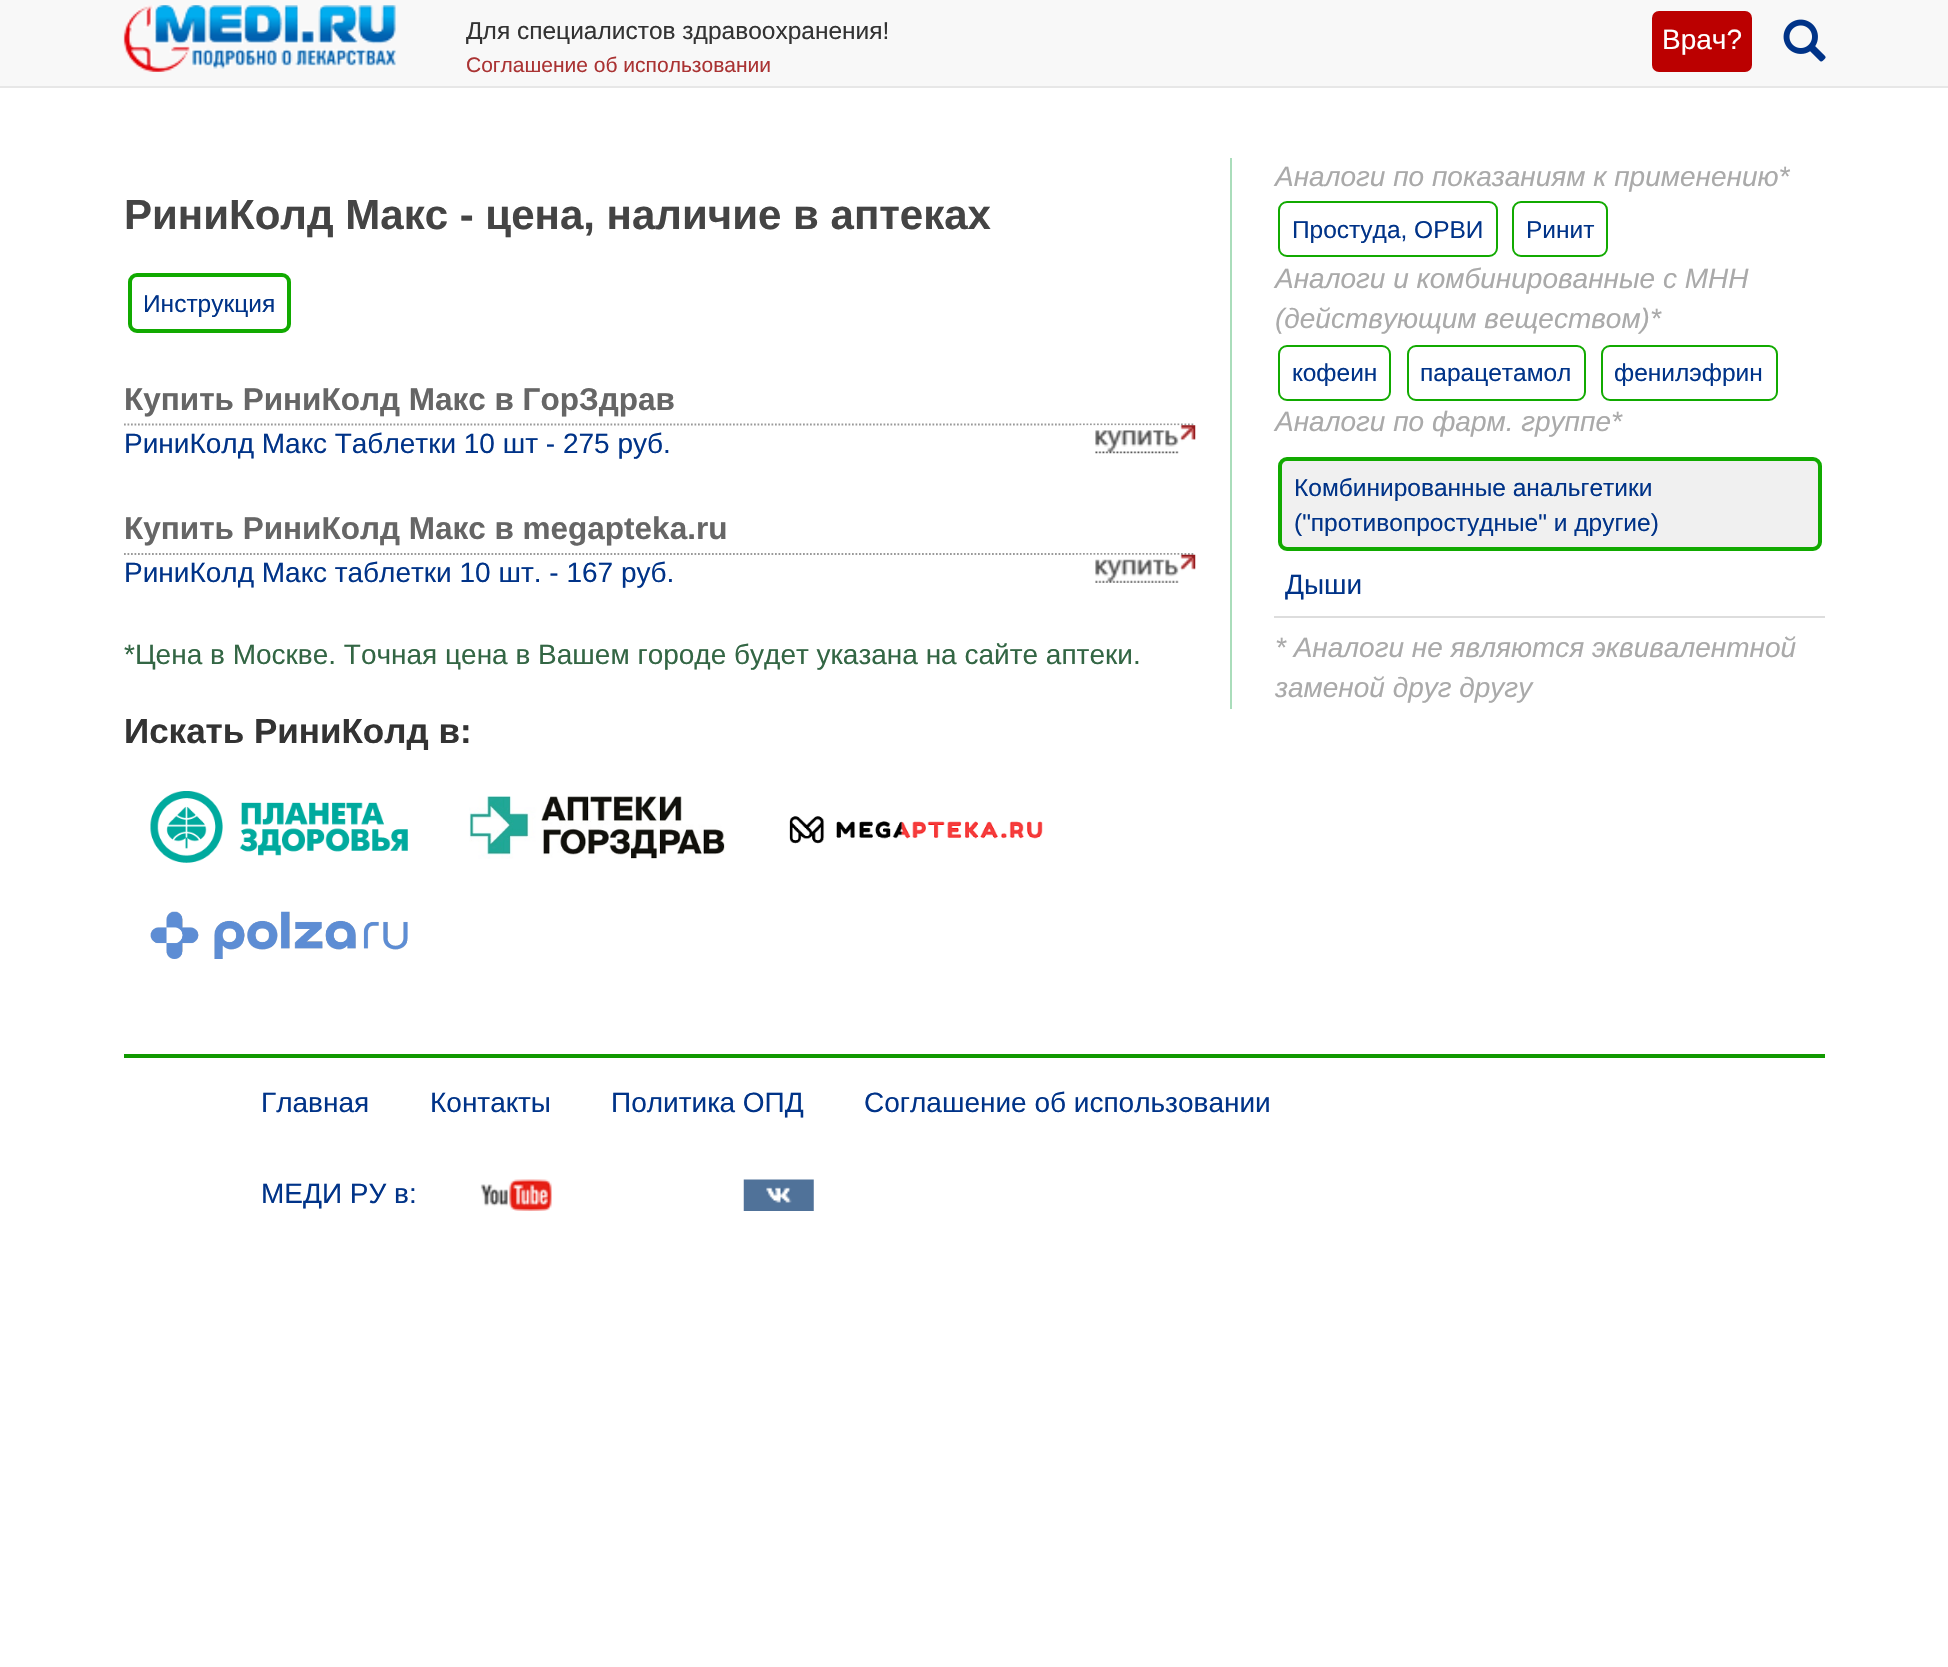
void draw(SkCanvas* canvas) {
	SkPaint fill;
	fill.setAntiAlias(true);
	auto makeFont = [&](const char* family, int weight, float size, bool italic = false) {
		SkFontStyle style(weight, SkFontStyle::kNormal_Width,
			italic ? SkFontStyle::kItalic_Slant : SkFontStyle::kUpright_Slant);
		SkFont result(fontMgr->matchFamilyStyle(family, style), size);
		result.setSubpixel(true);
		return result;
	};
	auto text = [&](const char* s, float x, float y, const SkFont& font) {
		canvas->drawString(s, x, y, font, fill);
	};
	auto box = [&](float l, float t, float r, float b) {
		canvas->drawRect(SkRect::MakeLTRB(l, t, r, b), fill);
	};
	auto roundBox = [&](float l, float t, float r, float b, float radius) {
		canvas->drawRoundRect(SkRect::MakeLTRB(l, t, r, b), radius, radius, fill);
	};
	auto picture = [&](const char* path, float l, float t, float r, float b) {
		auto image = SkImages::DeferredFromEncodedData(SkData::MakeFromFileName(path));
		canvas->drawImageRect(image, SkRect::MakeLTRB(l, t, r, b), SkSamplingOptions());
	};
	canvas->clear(0xFFFFFFFF);
	fill.setColor(0xFFF8F8F8);
	box(0, 0, 1948, 86);
	fill.setColor(0xFFE7E7E7);
	box(0, 86, 1948, 88);
	picture("image0.png", 123, 5, 396, 72);
	fill.setColor(0xFFBB0000);
	roundBox(1652, 11, 1752, 72, 7);
	picture("image1.png", 1783, 19, 1826, 62);
	fill.setStyle(SkPaint::kStroke_Style);
	fill.setStrokeWidth(4);
	fill.setColor(0xFF11AA00);
	canvas->drawRoundRect(SkRect::MakeLTRB(130, 275, 289, 331), 7, 7, fill);
	fill.setStrokeWidth(1.8f);
	fill.setColor(0xFF999999);
	fill.setPathEffect(SkDashPathEffect::Make({{1.75f, 1.75f}}, 0));
	canvas->drawPath(SkPathBuilder().moveTo(124, 424.5f).lineTo(1195, 424.5f).detach(), fill);
	fill.setPathEffect(nullptr);
	picture("image2.png", 1076, 425, 1196, 454);
	fill.setPathEffect(SkDashPathEffect::Make({{1.75f, 1.75f}}, 0));
	canvas->drawPath(SkPathBuilder().moveTo(124, 554).lineTo(1195, 554).detach(), fill);
	fill.setPathEffect(nullptr);
	picture("image3.png", 1076, 554, 1196, 583);
	picture("image4.png", 150, 791, 408, 863);
	picture("image5.png", 469, 796, 725, 859);
	picture("image6.png", 789, 816, 1043, 844);
	picture("image7.png", 150, 911, 408, 959);
	fill.setStyle(SkPaint::kFill_Style);
	fill.setColor(0xFFAADDBB);
	box(1230, 158, 1232, 709);
	fill.setStyle(SkPaint::kStroke_Style);
	fill.setStrokeWidth(2);
	fill.setColor(0xFF11AA00);
	canvas->drawRoundRect(SkRect::MakeLTRB(1279, 202, 1497, 256), 8, 8, fill);
	canvas->drawRoundRect(SkRect::MakeLTRB(1513, 202, 1607, 256), 8, 8, fill);
	canvas->drawRoundRect(SkRect::MakeLTRB(1279, 346, 1390, 400), 8, 8, fill);
	canvas->drawRoundRect(SkRect::MakeLTRB(1408, 346, 1585, 400), 8, 8, fill);
	canvas->drawRoundRect(SkRect::MakeLTRB(1602, 346, 1777, 400), 8, 8, fill);
	fill.setStyle(SkPaint::kFill_Style);
	fill.setColor(0xFFF0F0F0);
	canvas->drawRoundRect(SkRect::MakeLTRB(1280, 459, 1820, 549), 7, 7, fill);
	fill.setStyle(SkPaint::kStroke_Style);
	fill.setStrokeWidth(4);
	fill.setColor(0xFF11AA00);
	canvas->drawRoundRect(SkRect::MakeLTRB(1280, 459, 1820, 549), 7, 7, fill);
	fill.setStyle(SkPaint::kFill_Style);
	fill.setColor(0xFFDDDDDD);
	box(1274, 616, 1825, 618);
	fill.setColor(0xFF119900);
	box(124, 1054, 1825, 1058);
	picture("image8.png", 480, 1179, 552, 1211);
	picture("image9.png", 743, 1179, 814, 1211);
	auto font1 = makeFont("Liberation Sans", 400, 24.5f);
	fill.setColor(0xFF333333);
	text("Для специалистов здравоохранения!", 466, 39, font1);
	auto font2 = makeFont("Liberation Sans", 400, 21);
	fill.setColor(0xFFAA3333);
	text("Соглашение об использовании", 466, 72, font2);
	auto font3 = makeFont("Liberation Sans", 400, 28);
	fill.setColor(0xFFFFFFFF);
	text("Врач?", 1662, 49, font3);
	auto font4 = makeFont("Liberation Sans", 700, 42);
	fill.setColor(0xFF444444);
	text("РиниКолд Макс - цена, наличие в аптеках", 124, 229, font4);
	fill.setColor(0xFF003388);
	text("Инструкция", 143, 312, font1);
	auto font5 = makeFont("Liberation Sans", 700, 31.5f);
	fill.setColor(0xFF666666);
	text("Купить РиниКолд Макс в ГорЗдрав", 124, 410, font5);
	fill.setColor(0xFF003388);
	text("РиниКолд Макс Таблетки 10 шт - 275 руб.", 124, 453, font3);
	fill.setColor(0xFF666666);
	text("Купить РиниКолд Макс в megapteka.ru", 124, 539, font5);
	fill.setColor(0xFF003388);
	text("РиниКолд Макс таблетки 10 шт. - 167 руб.", 124, 582, font3);
	fill.setColor(0xFF336644);
	text("*Цена в Москве. Точная цена в Вашем городе будет указана на сайте аптеки.", 124, 664, font3);
	auto font6 = makeFont("Liberation Sans", 700, 35);
	fill.setColor(0xFF333333);
	text("Искать РиниКолд в:", 124, 743, font6);
	auto font7 = makeFont("Liberation Sans", 400, 28, true);
	fill.setColor(0xFFAAAAAA);
	text("Аналоги по показаниям к применению*", 1275, 186, font7);
	fill.setColor(0xFF003388);
	text("Простуда, ОРВИ", 1292, 238, font1);
	text("Ринит", 1526, 238, font1);
	fill.setColor(0xFFAAAAAA);
	text("Аналоги и комбинированные с МНН", 1275, 288, font7);
	text("(действующим веществом)*", 1275, 328, font7);
	fill.setColor(0xFF003388);
	text("кофеин", 1292, 381, font1);
	text("парацетамол", 1420, 381, font1);
	text("фенилэфрин", 1614, 381, font1);
	fill.setColor(0xFFAAAAAA);
	text("Аналоги по фарм. группе*", 1275, 431, font7);
	fill.setColor(0xFF003388);
	text("Комбинированные анальгетики", 1294, 496, font1);
	text("(\"противопростудные\" и другие)", 1294, 531, font1);
	text("Дыши", 1285, 594, font3);
	fill.setColor(0xFFAAAAAA);
	text("* Аналоги не являются эквивалентной", 1275, 657, font7);
	text("заменой друг другу", 1275, 697, font7);
	fill.setColor(0xFF003388);
	text("Главная", 261, 1112, font3);
	text("Контакты", 430, 1112, font3);
	text("Политика ОПД", 611, 1112, font3);
	text("Соглашение об использовании", 864, 1112, font3);
	text("МЕДИ РУ в:", 261, 1203, font3);
}
